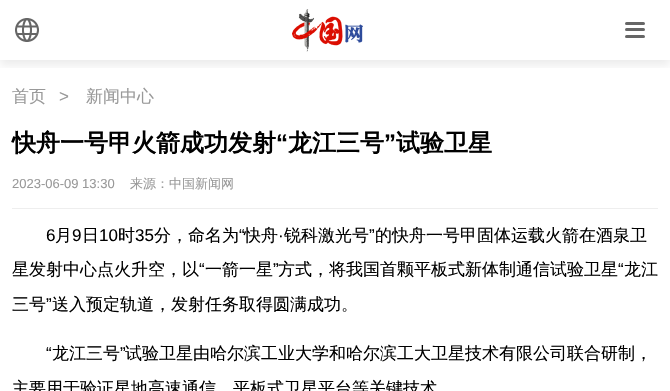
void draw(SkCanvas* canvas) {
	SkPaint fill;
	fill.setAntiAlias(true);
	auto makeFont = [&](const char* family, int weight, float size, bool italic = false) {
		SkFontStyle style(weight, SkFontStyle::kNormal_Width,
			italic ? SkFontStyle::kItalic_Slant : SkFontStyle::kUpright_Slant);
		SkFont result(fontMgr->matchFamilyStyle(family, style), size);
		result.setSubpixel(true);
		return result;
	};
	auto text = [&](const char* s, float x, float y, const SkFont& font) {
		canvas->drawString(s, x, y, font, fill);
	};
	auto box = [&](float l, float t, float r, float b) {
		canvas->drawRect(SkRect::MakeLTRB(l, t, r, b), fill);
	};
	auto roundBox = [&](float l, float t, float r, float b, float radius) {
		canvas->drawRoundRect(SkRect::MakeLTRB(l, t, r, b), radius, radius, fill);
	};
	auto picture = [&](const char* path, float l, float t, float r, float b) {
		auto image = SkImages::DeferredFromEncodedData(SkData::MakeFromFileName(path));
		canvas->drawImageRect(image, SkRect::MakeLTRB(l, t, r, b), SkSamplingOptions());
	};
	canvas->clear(0xFFFFFFFF);
	canvas->save();
	canvas->clipRect(SkRect::MakeLTRB(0, 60, 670, 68));
	fill.setColor(0x14000000);
	fill.setMaskFilter(SkMaskFilter::MakeBlur(kNormal_SkBlurStyle, 4.5f));
	canvas->drawRect(SkRect::MakeLTRB(0, 5, 670, 65), fill);
	fill.setMaskFilter(nullptr);
	canvas->restore();
	picture("image0.png", 15, 18, 39, 42);
	picture("image1.png", 292, 9, 363, 52);
	fill.setColor(0xFF666666);
	roundBox(625, 22, 645, 25, 1.5f);
	roundBox(625, 28, 645, 31, 1.5f);
	roundBox(625, 35, 645, 38, 1.5f);
	fill.setColor(0xFFEEEEEE);
	box(12, 208, 658, 209);
	auto font1 = makeFont("WenQuanYi Zen Hei", 500, 17);
	fill.setColor(0xFF999999);
	text("首页", 12, 102, font1);
	auto font2 = makeFont("Liberation Sans", 400, 17);
	text(">", 59, 102, font2);
	text("新闻中心", 86, 102, font1);
	auto font3 = makeFont("WenQuanYi Zen Hei", 700, 24);
	fill.setColor(0xFF000000);
	text("快舟一号甲火箭成功发射", 12, 151, font3);
	auto font4 = makeFont("Liberation Sans", 700, 24);
	text("“", 276, 151, font4);
	text("龙江三号", 288, 151, font3);
	text("”", 384, 151, font4);
	text("试验卫星", 396, 151, font3);
	auto font5 = makeFont("Liberation Sans", 400, 13);
	fill.setColor(0xFF999999);
	text("2023-06-09 13:30", 12, 188, font5);
	auto font6 = makeFont("WenQuanYi Zen Hei", 500, 13);
	text("来源：中国新闻网", 130, 188, font6);
	fill.setColor(0xFF000000);
	text("6", 46, 241, font2);
	text("月", 55, 241, font1);
	text("9", 72, 241, font2);
	text("日", 82, 241, font1);
	text("10", 99, 241, font2);
	text("时", 118, 241, font1);
	text("35", 135, 241, font2);
	text("分，命名为", 154, 241, font1);
	text("“", 239, 241, font2);
	text("快舟", 244, 241, font1);
	text("锐科激光号", 284, 241, font1);
	text("”", 369, 241, font2);
	text("的快舟一号甲固体运载火箭在酒泉卫", 375, 241, font1);
	text("·", 278, 241, font2);
	text("星发射中心点火升空，以", 12, 275, font1);
	text("“", 199, 275, font2);
	text("一箭一星", 205, 275, font1);
	text("”", 273, 275, font2);
	text("方式，将我国首颗平板式新体制通信试验卫星", 278, 275, font1);
	text("“", 618, 275, font2);
	text("龙江", 624, 275, font1);
	text("三号", 12, 310, font1);
	text("”", 46, 310, font2);
	text("送入预定轨道，发射任务取得圆满成功。", 52, 310, font1);
	text("“", 46, 359, font2);
	text("龙江三号", 52, 359, font1);
	text("”", 120, 359, font2);
	text("试验卫星由哈尔滨工业大学和哈尔滨工大卫星技术有限公司联合研制，", 125, 359, font1);
	text("主要用于验证星地高速通信、平板式卫星平台等关键技术", 12, 394, font1);
}
